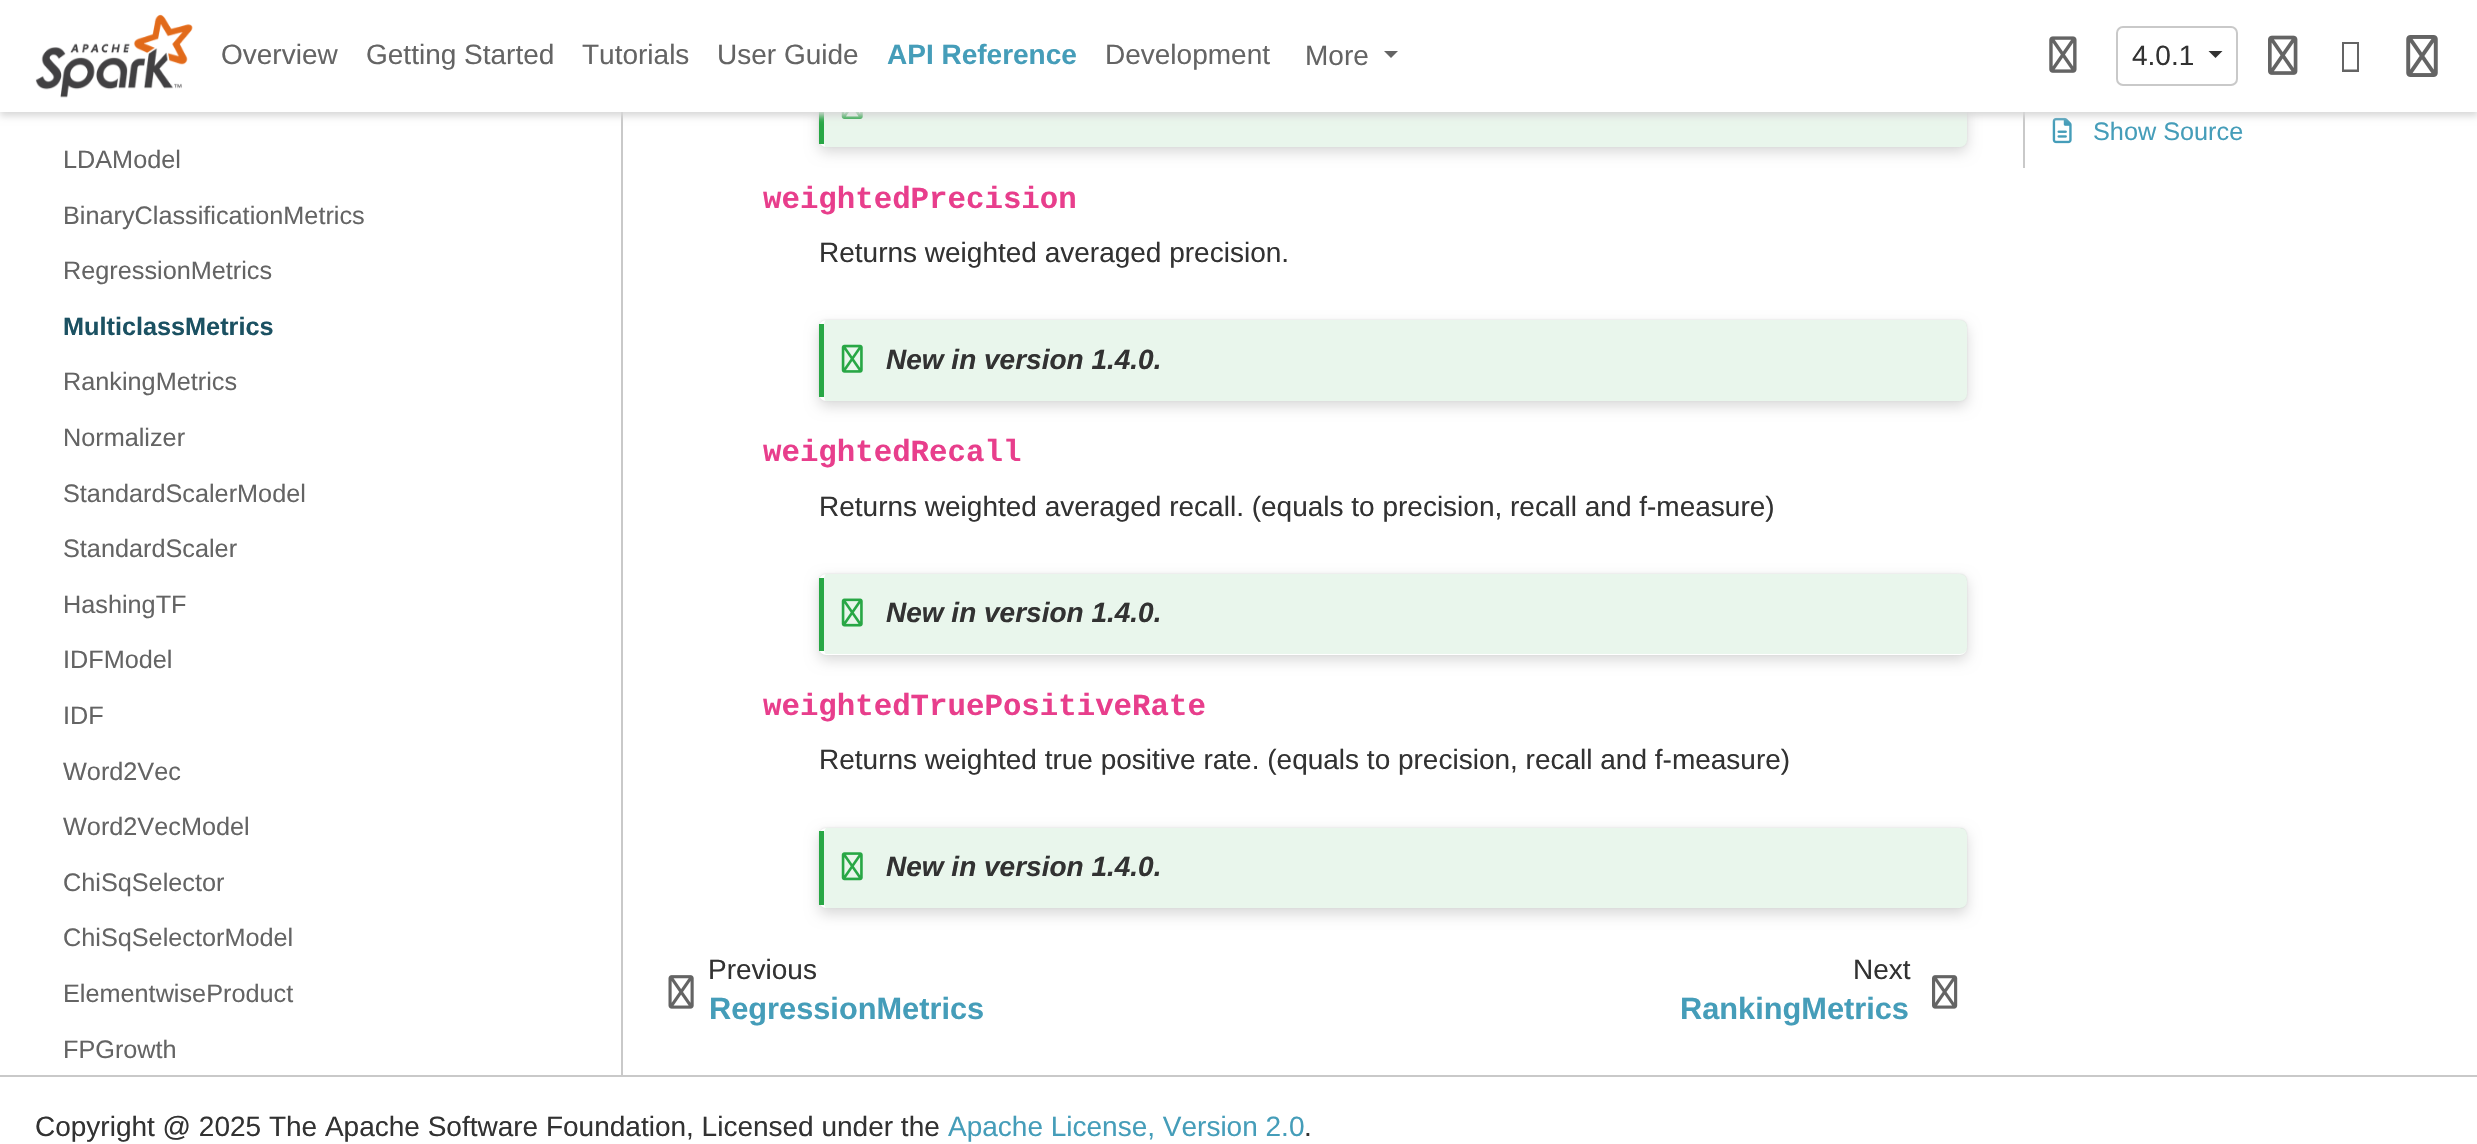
void draw(SkCanvas* canvas) {
	SkPaint fill;
	fill.setAntiAlias(true);
	auto makeFont = [&](const char* family, int weight, float size, bool italic = false) {
		SkFontStyle style(weight, SkFontStyle::kNormal_Width,
			italic ? SkFontStyle::kItalic_Slant : SkFontStyle::kUpright_Slant);
		SkFont result(fontMgr->matchFamilyStyle(family, style), size);
		result.setSubpixel(true);
		return result;
	};
	auto text = [&](const char* s, float x, float y, const SkFont& font) {
		canvas->drawString(s, x, y, font, fill);
	};
	auto box = [&](float l, float t, float r, float b) {
		canvas->drawRect(SkRect::MakeLTRB(l, t, r, b), fill);
	};
	auto roundBox = [&](float l, float t, float r, float b, float radius) {
		canvas->drawRoundRect(SkRect::MakeLTRB(l, t, r, b), radius, radius, fill);
	};
	auto picture = [&](const char* path, float l, float t, float r, float b) {
		auto image = SkImages::DeferredFromEncodedData(SkData::MakeFromFileName(path));
		canvas->drawImageRect(image, SkRect::MakeLTRB(l, t, r, b), SkSamplingOptions());
	};
	canvas->clear(0xFFFFFFFF);
	fill.setColor(0xFFC9C9C9);
	box(621, 112, 623, 1075);
	box(2023, 112, 2025, 168);
	picture("image4.png", 2052, 117, 2072, 144);
	fill.setColor(0xFFD8D8D8);
	fill.setMaskFilter(SkMaskFilter::MakeBlur(kNormal_SkBlurStyle, 1));
	canvas->drawRoundRect(SkRect::MakeLTRB(819, 67, 1967, 147), 7, 7, fill);
	fill.setMaskFilter(nullptr);
	fill.setMaskFilter(SkMaskFilter::MakeBlur(kNormal_SkBlurStyle, 7));
	canvas->drawRoundRect(SkRect::MakeLTRB(819, 72, 1967, 152), 7, 7, fill);
	fill.setMaskFilter(nullptr);
	fill.setColor(0xFFFFFFFF);
	roundBox(819, 67, 1967, 147, 7);
	fill.setColor(0xFF28A745);
	box(819, 112, 824, 144);
	picture("image5.png", 841, 112, 863, 119);
	fill.setColor(0x1A28A745);
	canvas->drawPath(SkPathBuilder().moveTo(826, 147).lineTo(1960, 147).cubicTo(1964, 147, 1967, 144, 1967, 140).lineTo(1967, 74).cubicTo(1967, 71, 1965, 68, 1963, 67).lineTo(825, 67).cubicTo(825, 68, 824, 71, 824, 74).lineTo(824, 140).cubicTo(824, 144, 825, 147, 826, 147).close().detach(), fill);
	fill.setColor(0xFFD8D8D8);
	fill.setMaskFilter(SkMaskFilter::MakeBlur(kNormal_SkBlurStyle, 3.5f));
	canvas->drawRect(SkRect::MakeLTRB(0, 4, 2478, 116), fill);
	fill.setMaskFilter(nullptr);
	fill.setColor(0xFFFFFFFF);
	box(0, 0, 2477, 112);
	picture("image0.png", 35, 14, 193, 98);
	fill.setColor(0xFF646464);
	canvas->drawPath(SkPathBuilder().moveTo(1384, 51).lineTo(1398, 51).lineTo(1391, 58).close().detach(), fill);
	picture("image1.png", 2049, 36, 2077, 73);
	fill.setStyle(SkPaint::kStroke_Style);
	fill.setStrokeWidth(2);
	fill.setColor(0xFFC9C9C9);
	canvas->drawRoundRect(SkRect::MakeLTRB(2117, 27, 2237, 85), 6, 6, fill);
	fill.setStyle(SkPaint::kFill_Style);
	fill.setColor(0xFF323232);
	canvas->drawPath(SkPathBuilder().moveTo(2208.5f, 51).lineTo(2222.5f, 51).lineTo(2215.5f, 58).close().detach(), fill);
	picture("image2.png", 2268, 35, 2298, 75);
	fill.setColor(0xFF646464);
	canvas->drawPath(SkPathBuilder().moveTo(2342, 72).lineTo(2342, 42).lineTo(2359, 42).lineTo(2359, 72).close().moveTo(2344, 69.5f).lineTo(2357, 69.5f).lineTo(2357, 44).lineTo(2344, 44).close().detach(), fill);
	picture("image3.png", 2406, 35, 2438, 77);
	fill.setColor(0xFFD8D8D8);
	fill.setMaskFilter(SkMaskFilter::MakeBlur(kNormal_SkBlurStyle, 1));
	canvas->drawRoundRect(SkRect::MakeLTRB(819, 320, 1967, 401), 7, 7, fill);
	fill.setMaskFilter(nullptr);
	fill.setMaskFilter(SkMaskFilter::MakeBlur(kNormal_SkBlurStyle, 7));
	canvas->drawRoundRect(SkRect::MakeLTRB(819, 326, 1967, 406), 7, 7, fill);
	fill.setMaskFilter(nullptr);
	fill.setColor(0xFFFFFFFF);
	roundBox(819, 320, 1967, 401, 7);
	fill.setColor(0xFF28A745);
	box(819, 324, 824, 397);
	picture("image6.png", 841, 344, 863, 373);
	fill.setColor(0x1A28A745);
	canvas->drawPath(SkPathBuilder().moveTo(826, 320).cubicTo(825, 320, 824, 323, 824, 327).lineTo(824, 394).cubicTo(824, 398, 825, 401, 826, 401).lineTo(1960, 401).cubicTo(1964, 401, 1967, 398, 1967, 394).lineTo(1967, 327).cubicTo(1967, 323, 1964, 320, 1960, 320).close().detach(), fill);
	fill.setColor(0xFFD8D8D8);
	fill.setMaskFilter(SkMaskFilter::MakeBlur(kNormal_SkBlurStyle, 1));
	canvas->drawRoundRect(SkRect::MakeLTRB(819, 574, 1967, 655), 7, 7, fill);
	fill.setMaskFilter(nullptr);
	fill.setMaskFilter(SkMaskFilter::MakeBlur(kNormal_SkBlurStyle, 7));
	canvas->drawRoundRect(SkRect::MakeLTRB(819, 579, 1967, 660), 7, 7, fill);
	fill.setMaskFilter(nullptr);
	fill.setColor(0xFFFFFFFF);
	roundBox(819, 574, 1967, 655, 7);
	fill.setColor(0xFF28A745);
	box(819, 578, 824, 651);
	picture("image7.png", 841, 598, 863, 627);
	fill.setColor(0x1A28A745);
	canvas->drawPath(SkPathBuilder().moveTo(826, 574).cubicTo(825, 574, 824, 577, 824, 581).lineTo(824, 648).cubicTo(824, 651, 825, 654, 826, 654).lineTo(1960, 654).cubicTo(1964, 654, 1967, 651, 1967, 648).lineTo(1967, 581).cubicTo(1967, 577, 1964, 574, 1960, 574).close().detach(), fill);
	fill.setColor(0xFFD8D8D8);
	fill.setMaskFilter(SkMaskFilter::MakeBlur(kNormal_SkBlurStyle, 1));
	canvas->drawRoundRect(SkRect::MakeLTRB(819, 828, 1967, 908), 7, 7, fill);
	fill.setMaskFilter(nullptr);
	fill.setMaskFilter(SkMaskFilter::MakeBlur(kNormal_SkBlurStyle, 7));
	canvas->drawRoundRect(SkRect::MakeLTRB(819, 833, 1967, 914), 7, 7, fill);
	fill.setMaskFilter(nullptr);
	fill.setColor(0xFFFFFFFF);
	roundBox(819, 828, 1967, 908, 7);
	fill.setColor(0xFF28A745);
	box(819, 831, 824, 905);
	picture("image8.png", 841, 852, 863, 881);
	fill.setColor(0x1A28A745);
	canvas->drawPath(SkPathBuilder().moveTo(826, 908).cubicTo(825, 907, 824, 904, 824, 901).lineTo(824, 835).cubicTo(824, 832, 825, 829, 826, 828).lineTo(1962, 828).cubicTo(1965, 829, 1967, 832, 1967, 835).lineTo(1967, 901).cubicTo(1967, 904, 1965, 907, 1962, 908).close().detach(), fill);
	picture("image9.png", 668, 975, 694, 1009);
	picture("image10.png", 1932, 975, 1958, 1009);
	fill.setColor(0xFFC9C9C9);
	box(0, 1075, 2477, 1077);
	auto font1 = makeFont("Liberation Sans", 400, 28);
	fill.setColor(0xFF646464);
	text("Overview", 221, 64, font1);
	text("Getting Started", 366, 64, font1);
	text("Tutorials", 582, 64, font1);
	text("User Guide", 717, 64, font1);
	auto font2 = makeFont("Liberation Sans", 700, 28);
	fill.setColor(0xFF459DB9);
	text("API Reference", 887, 64, font2);
	fill.setColor(0xFF646464);
	text("Development", 1105, 64, font1);
	text("More", 1305, 65, font1);
	fill.setColor(0xFF323232);
	text("4.0.1", 2132, 65, font1);
	auto font3 = makeFont("Liberation Sans", 400, 25.25f);
	fill.setColor(0xFF646464);
	text("LDAModel", 63, 168, font3);
	text("BinaryClassificationMetrics", 63, 224, font3);
	text("RegressionMetrics", 63, 279, font3);
	auto font4 = makeFont("Liberation Sans", 700, 25.25f);
	fill.setColor(0xFF1B5162);
	text("MulticlassMetrics", 63, 335, font4);
	fill.setColor(0xFF646464);
	text("RankingMetrics", 63, 390, font3);
	text("Normalizer", 63, 446, font3);
	text("StandardScalerModel", 63, 502, font3);
	text("StandardScaler", 63, 557, font3);
	text("HashingTF", 63, 613, font3);
	text("IDFModel", 63, 668, font3);
	text("IDF", 63, 724, font3);
	text("Word2Vec", 63, 780, font3);
	text("Word2VecModel", 63, 835, font3);
	text("ChiSqSelector", 63, 891, font3);
	text("ChiSqSelectorModel", 63, 946, font3);
	text("ElementwiseProduct", 63, 1002, font3);
	text("FPGrowth", 63, 1058, font3);
	fill.setColor(0xFF459DB9);
	text("Show Source", 2093, 140, font3);
	auto font5 = makeFont("Liberation Mono", 700, 30.75f);
	fill.setColor(0xFFE83E8C);
	text("weightedPrecision", 763, 208, font5);
	fill.setColor(0xFF323232);
	text("Returns weighted averaged precision.", 819, 262, font1);
	auto font6 = makeFont("Liberation Sans", 700, 28, true);
	text("New in version 1.4.0.", 886, 369, font6);
	fill.setColor(0xFFE83E8C);
	text("weightedRecall", 763, 461, font5);
	fill.setColor(0xFF323232);
	text("Returns weighted averaged recall. (equals to precision, recall and f-measure)", 819, 516, font1);
	text("New in version 1.4.0.", 886, 622, font6);
	fill.setColor(0xFFE83E8C);
	text("weightedTruePositiveRate", 763, 715, font5);
	fill.setColor(0xFF323232);
	text("Returns weighted true positive rate. (equals to precision, recall and f-measure)", 819, 769, font1);
	text("New in version 1.4.0.", 886, 876, font6);
	text("Previous", 708, 979, font1);
	auto font7 = makeFont("Liberation Sans", 700, 30.75f);
	fill.setColor(0xFF459DB9);
	text("RegressionMetrics", 709, 1019, font7);
	fill.setColor(0xFF323232);
	text("Next", 1853, 979, font1);
	fill.setColor(0xFF459DB9);
	text("RankingMetrics", 1680, 1019, font7);
	fill.setColor(0xFF323232);
	text("Copyright @ 2025 The Apache Software Foundation, Licensed under the", 35, 1136, font1);
	fill.setColor(0xFF459DB9);
	text("Apache License, Version 2.0", 948, 1136, font1);
	fill.setColor(0xFF323232);
	text(".", 1304, 1136, font1);
}
